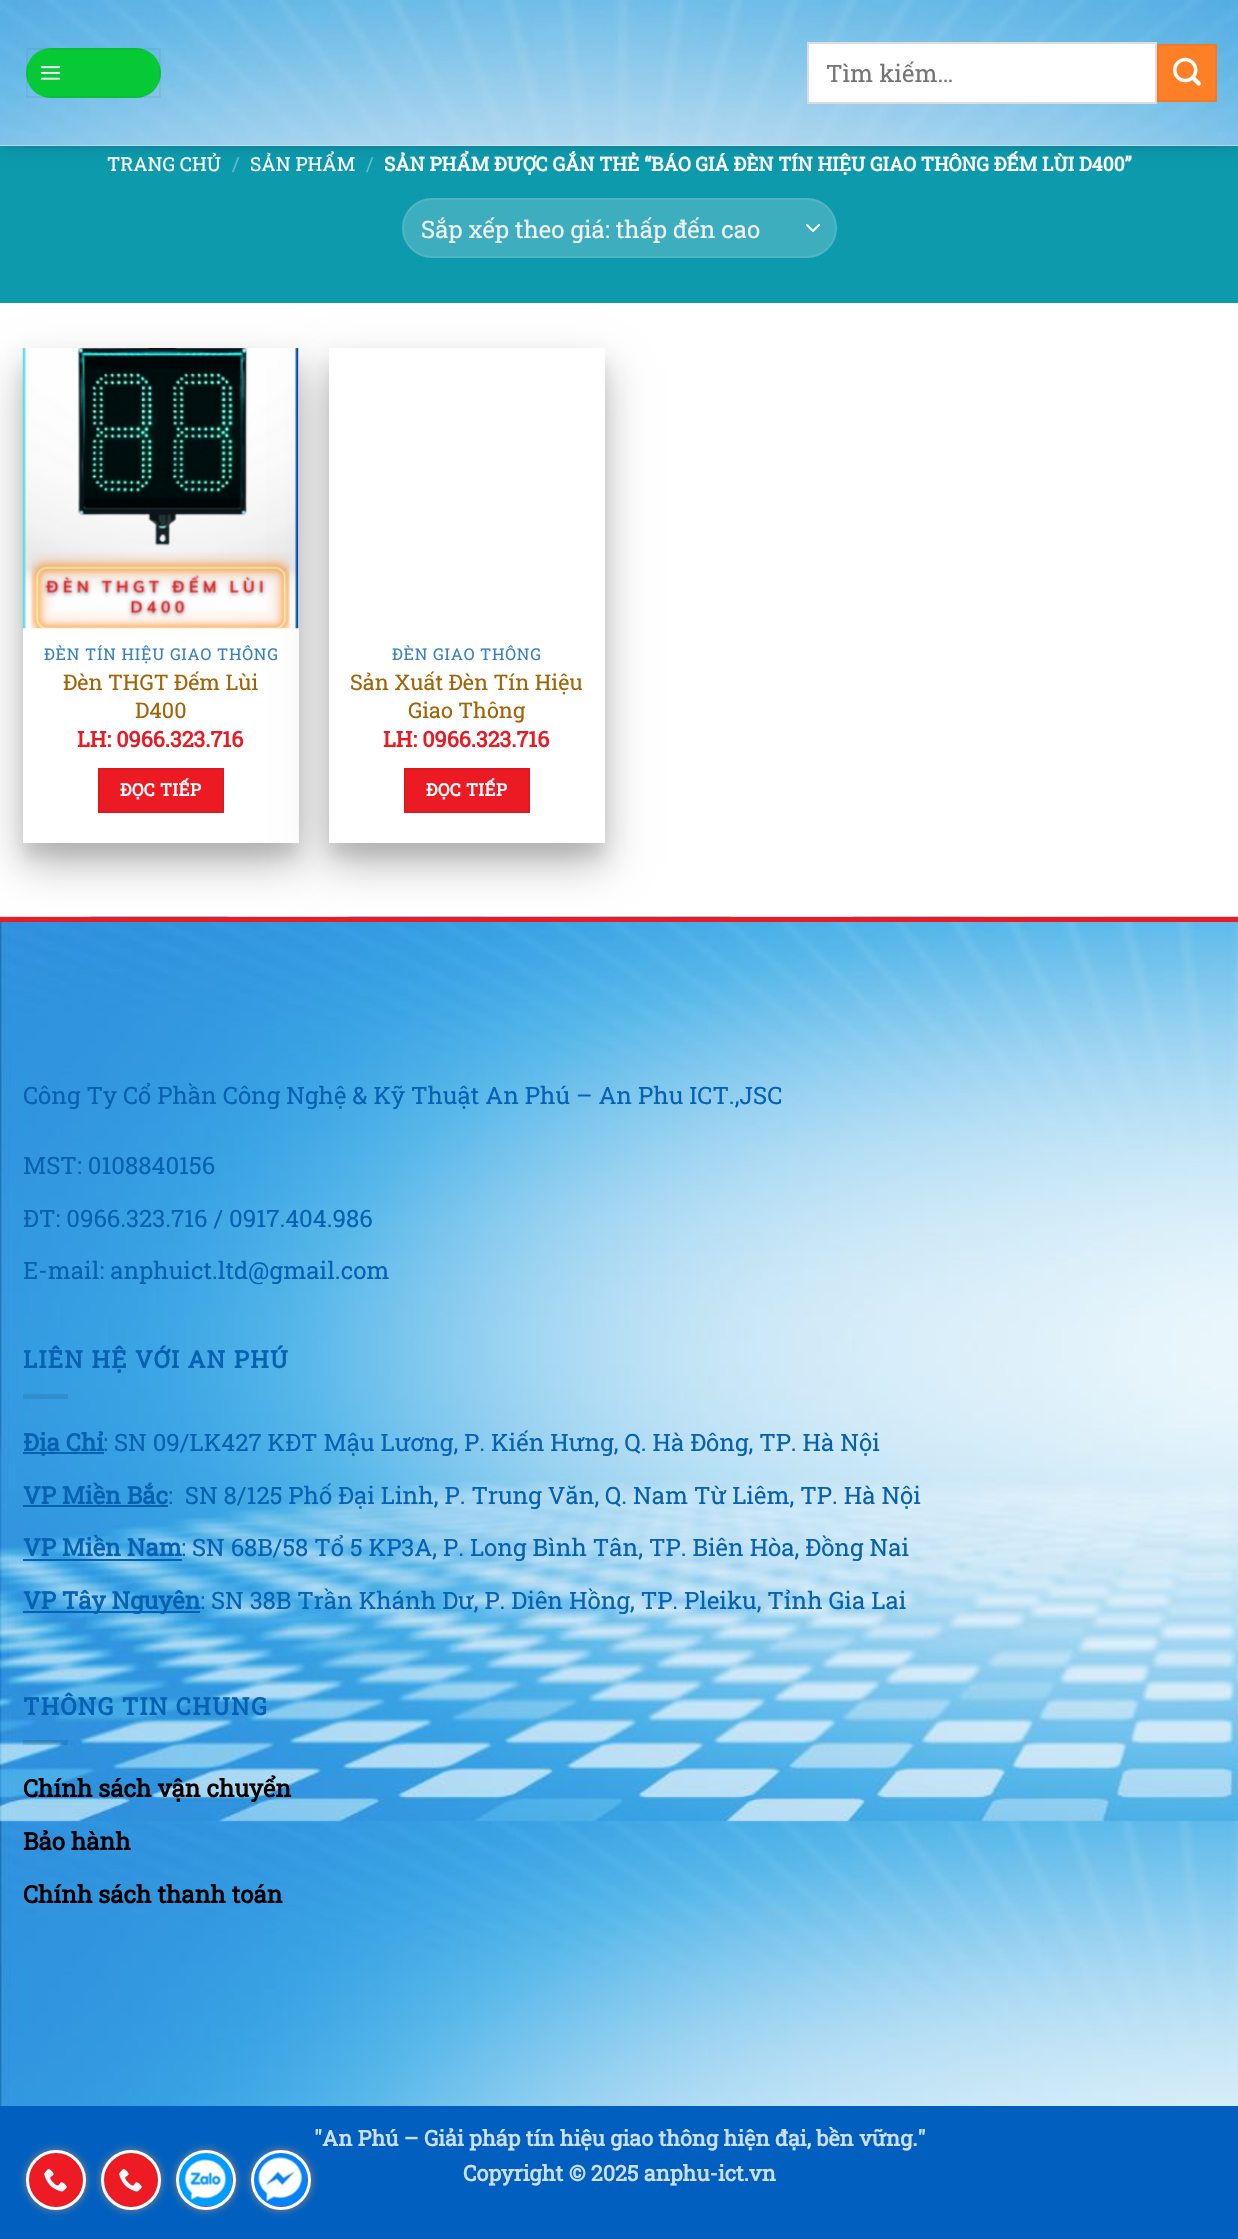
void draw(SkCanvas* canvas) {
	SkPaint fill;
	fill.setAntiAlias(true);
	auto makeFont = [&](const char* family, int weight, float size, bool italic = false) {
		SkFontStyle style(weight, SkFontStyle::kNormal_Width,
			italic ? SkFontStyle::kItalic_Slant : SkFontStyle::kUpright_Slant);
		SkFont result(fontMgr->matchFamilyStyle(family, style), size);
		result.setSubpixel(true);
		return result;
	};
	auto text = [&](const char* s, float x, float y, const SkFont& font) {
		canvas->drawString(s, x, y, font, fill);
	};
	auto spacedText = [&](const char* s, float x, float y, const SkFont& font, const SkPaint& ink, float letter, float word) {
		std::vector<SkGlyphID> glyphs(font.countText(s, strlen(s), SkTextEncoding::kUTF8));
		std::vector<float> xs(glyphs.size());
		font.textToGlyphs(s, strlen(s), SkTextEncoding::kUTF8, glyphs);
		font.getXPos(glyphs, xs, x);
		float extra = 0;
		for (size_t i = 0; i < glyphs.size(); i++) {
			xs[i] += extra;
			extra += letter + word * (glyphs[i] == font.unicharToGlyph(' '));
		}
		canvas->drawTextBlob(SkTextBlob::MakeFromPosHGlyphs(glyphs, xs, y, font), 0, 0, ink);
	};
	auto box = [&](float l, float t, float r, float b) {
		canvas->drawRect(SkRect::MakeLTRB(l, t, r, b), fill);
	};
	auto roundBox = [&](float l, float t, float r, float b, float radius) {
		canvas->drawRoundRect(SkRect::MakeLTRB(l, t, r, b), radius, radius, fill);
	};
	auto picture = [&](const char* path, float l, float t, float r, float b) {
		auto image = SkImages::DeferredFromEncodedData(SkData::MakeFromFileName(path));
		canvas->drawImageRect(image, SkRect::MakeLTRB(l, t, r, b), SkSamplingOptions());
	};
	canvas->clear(0xFF005FBF);
	fill.setColor(0xFFFFFFFF);
	box(0, 145, 1238, 917);
	fill.setColor(0xFF0D9AAD);
	box(0, 146, 1238, 303);
	fill.setColor(0x26000000);
	fill.setMaskFilter(SkMaskFilter::MakeBlur(kNormal_SkBlurStyle, 7.5f));
	canvas->drawRect(SkRect::MakeLTRB(2, 2, 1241, 147), fill);
	fill.setMaskFilter(nullptr);
	picture("image0.png", 0, 0, 1238, 146);
	fill.setColor(0x1CFFDBDB);
	box(0, 0, 1238, 146);
	fill.setColor(0xFF06C936);
	roundBox(26, 48, 161, 98, 25);
	fill.setStyle(SkPaint::kStroke_Style);
	fill.setStrokeWidth(2);
	fill.setColor(0x0D000000);
	canvas->drawRect(SkRect::MakeLTRB(27, 49, 160, 97), fill);
	picture("image1.png", 40, 66, 61, 80);
	fill.setStyle(SkPaint::kFill_Style);
	fill.setColor(0xFFFFFFFF);
	canvas->drawRect(SkRect::MakeLTRB(808, 43, 1156, 103), fill);
	fill.setStyle(SkPaint::kStroke_Style);
	fill.setColor(0xFFDDDDDD);
	canvas->drawRect(SkRect::MakeLTRB(808, 43, 1156, 103), fill);
	fill.setStyle(SkPaint::kFill_Style);
	fill.setColor(0xFFFF7F27);
	canvas->drawRect(SkRect::MakeLTRB(1158, 45, 1216, 101), fill);
	fill.setStyle(SkPaint::kStroke_Style);
	fill.setColor(0xFFF27925);
	canvas->drawRect(SkRect::MakeLTRB(1158, 45, 1216, 101), fill);
	picture("image2.png", 1173, 57, 1201, 86);
	fill.setStyle(SkPaint::kFill_Style);
	fill.setColor(0xFF0B8AA2);
	box(23, 146, 1217, 148);
	fill.setColor(0xFF3DAEBD);
	roundBox(402, 198, 837, 258, 30);
	fill.setStyle(SkPaint::kStroke_Style);
	fill.setStrokeCap(SkPaint::kRound_Cap);
	fill.setStrokeJoin(SkPaint::kRound_Join);
	fill.setColor(0xFFFFFFFF);
	canvas->drawPath(SkPathBuilder().moveTo(807, 225).lineTo(813, 231).lineTo(819, 225).detach(), fill);
	fill.setStrokeCap(SkPaint::kButt_Cap);
	fill.setStrokeJoin(SkPaint::kMiter_Join);
	fill.setColor(0x17FFFFFF);
	canvas->drawRoundRect(SkRect::MakeLTRB(403, 199, 836, 257), 29, 29, fill);
	fill.setStyle(SkPaint::kFill_Style);
	fill.setColor(0x1A000000);
	fill.setMaskFilter(SkMaskFilter::MakeBlur(kNormal_SkBlurStyle, 7.5f));
	canvas->drawRect(SkRect::MakeLTRB(23, 363, 299, 858), fill);
	fill.setMaskFilter(nullptr);
	fill.setColor(0x40000000);
	fill.setMaskFilter(SkMaskFilter::MakeBlur(kNormal_SkBlurStyle, 21));
	canvas->drawRect(SkRect::MakeLTRB(23, 369, 299, 864), fill);
	fill.setMaskFilter(nullptr);
	fill.setColor(0xFFFFFFFF);
	box(23, 348, 299, 843);
	picture("image3.png", 22, 348, 299, 629);
	fill.setColor(0xFFEC1A23);
	canvas->drawRect(SkRect::MakeLTRB(99, 769, 223, 812), fill);
	fill.setStyle(SkPaint::kStroke_Style);
	fill.setColor(0xFFE01921);
	canvas->drawRect(SkRect::MakeLTRB(99, 769, 223, 812), fill);
	fill.setStyle(SkPaint::kFill_Style);
	fill.setColor(0x1A000000);
	fill.setMaskFilter(SkMaskFilter::MakeBlur(kNormal_SkBlurStyle, 7.5f));
	canvas->drawRect(SkRect::MakeLTRB(329, 363, 605, 858), fill);
	fill.setMaskFilter(nullptr);
	fill.setColor(0x40000000);
	fill.setMaskFilter(SkMaskFilter::MakeBlur(kNormal_SkBlurStyle, 21));
	canvas->drawRect(SkRect::MakeLTRB(329, 369, 605, 864), fill);
	fill.setMaskFilter(nullptr);
	fill.setColor(0xFFFFFFFF);
	box(329, 348, 605, 843);
	fill.setColor(0xFFEC1A23);
	canvas->drawRect(SkRect::MakeLTRB(405, 769, 529, 812), fill);
	fill.setStyle(SkPaint::kStroke_Style);
	fill.setColor(0xFFE01921);
	canvas->drawRect(SkRect::MakeLTRB(405, 769, 529, 812), fill);
	picture("image4.png", 0, 916, 1238, 2106);
	fill.setStyle(SkPaint::kFill_Style);
	fill.setColor(0xFFEC1A23);
	box(0, 917, 1238, 922);
	fill.setColor(0x1A000000);
	box(23, 1394, 68, 1399);
	fill.setColor(0xFF0661B1);
	box(23, 1452, 104, 1454);
	box(23, 1505, 168, 1507);
	box(23, 1559, 182, 1561);
	box(23, 1611, 200, 1613);
	fill.setColor(0x1A000000);
	box(23, 1740, 68, 1745);
	fill.setColor(0xFF888888);
	fill.setMaskFilter(SkMaskFilter::MakeBlur(kNormal_SkBlurStyle, 4));
	canvas->drawRoundRect(SkRect::MakeLTRB(26, 2150, 86, 2210), 30, 30, fill);
	fill.setMaskFilter(nullptr);
	fill.setColor(0xFFED1C24);
	canvas->drawCircle(56, 2180, 28.5f, fill);
	fill.setStyle(SkPaint::kStroke_Style);
	fill.setStrokeWidth(3);
	fill.setColor(0xFFFFFFFF);
	canvas->drawCircle(56, 2180, 28.5f, fill);
	picture("image5.png", 44, 2169, 67, 2192);
	fill.setStyle(SkPaint::kFill_Style);
	fill.setColor(0xFF888888);
	fill.setMaskFilter(SkMaskFilter::MakeBlur(kNormal_SkBlurStyle, 4));
	canvas->drawRoundRect(SkRect::MakeLTRB(101, 2150, 161, 2210), 30, 30, fill);
	fill.setMaskFilter(nullptr);
	fill.setColor(0xFFED1C24);
	canvas->drawCircle(131, 2180, 28.5f, fill);
	fill.setStyle(SkPaint::kStroke_Style);
	fill.setColor(0xFFFFFFFF);
	canvas->drawCircle(131, 2180, 28.5f, fill);
	picture("image5.png", 119, 2169, 142, 2192);
	fill.setStyle(SkPaint::kFill_Style);
	fill.setColor(0xFF888888);
	fill.setMaskFilter(SkMaskFilter::MakeBlur(kNormal_SkBlurStyle, 4));
	canvas->drawRoundRect(SkRect::MakeLTRB(176, 2150, 236, 2210), 30, 30, fill);
	fill.setMaskFilter(nullptr);
	fill.setColor(0xFFEF0303);
	canvas->drawCircle(206, 2180, 30, fill);
	picture("image6.png", 178, 2152, 233, 2207);
	fill.setStyle(SkPaint::kStroke_Style);
	fill.setColor(0xFFFFFFFF);
	canvas->drawCircle(206, 2180, 28.5f, fill);
	fill.setStyle(SkPaint::kFill_Style);
	fill.setColor(0xFF888888);
	fill.setMaskFilter(SkMaskFilter::MakeBlur(kNormal_SkBlurStyle, 4));
	canvas->drawRoundRect(SkRect::MakeLTRB(251, 2150, 311, 2210), 30, 30, fill);
	fill.setMaskFilter(nullptr);
	fill.setColor(0xFFEF0303);
	canvas->drawCircle(281, 2180, 30, fill);
	picture("image7.png", 253, 2152, 308, 2207);
	fill.setStyle(SkPaint::kStroke_Style);
	fill.setColor(0xFFFFFFFF);
	canvas->drawCircle(281, 2180, 28.5f, fill);
	canvas->save();
	canvas->clipRect(SkRect::MakeLTRB(827, 57, 1131, 89));
	auto font1 = makeFont("Roboto Slab", 400, 24);
	fill.setStyle(SkPaint::kFill_Style);
	fill.setColor(0xFF757575);
	text("Tìm kiếm…", 826, 82, font1);
	canvas->restore();
	auto font2 = makeFont("Roboto Slab", 400, 19.2f);
	fill.setColor(0xFFFFFFFF);
	text("TRANG CHỦ", 107, 171, font2);
	fill.setColor(0xFF62BDCA);
	text("/", 232, 171, font2);
	fill.setColor(0xFFFFFFFF);
	text("SẢN PHẨM", 250, 171, font2);
	fill.setColor(0xFF62BDCA);
	text("/", 366, 171, font2);
	auto font3 = makeFont("Roboto Slab", 700, 19.2f);
	fill.setColor(0xFFFFFFFF);
	text("SẢN PHẨM ĐƯỢC GẮN THẺ “BÁO GIÁ ĐÈN TÍN HIỆU GIAO THÔNG ĐẾM LÙI D400”", 384, 171, font3);
	fill.setColor(0xFFF1F1F1);
	text("Sắp xếp theo giá: thấp đến cao", 421, 238, font1);
	auto font4 = makeFont("Roboto Slab", 400, 16.25f);
	fill.setColor(0xFF3881C1);
	spacedText("ĐÈN TÍN HIỆU GIAO THÔNG", 44, 660, font4, fill, 0.8f, 0);
	auto font5 = makeFont("Roboto Slab", 400, 21.6f);
	fill.setColor(0xFFA26305);
	text("Đèn THGT Đếm Lùi", 63, 690, font5);
	text("D400", 135, 718, font5);
	auto font6 = makeFont("Roboto Slab", 700, 21.6f);
	fill.setColor(0xFFEC1923);
	text("LH: 0966.323.716", 77, 747, font6);
	auto font7 = makeFont("Roboto Slab", 700, 17.25f);
	fill.setColor(0xFFFFFFFF);
	spacedText("ĐỌC TIẾP", 120, 796, font7, fill, 0.5f, 0);
	fill.setColor(0xFF3881C1);
	spacedText("ĐÈN GIAO THÔNG", 392, 660, font4, fill, 0.8f, 0);
	fill.setColor(0xFFA26305);
	text("Sản Xuất Đèn Tín Hiệu", 350, 690, font5);
	text("Giao Thông", 408, 718, font5);
	fill.setColor(0xFFEC1923);
	text("LH: 0966.323.716", 383, 747, font6);
	fill.setColor(0xFFFFFFFF);
	spacedText("ĐỌC TIẾP", 426, 796, font7, fill, 0.5f, 0);
	fill.setColor(0xFF0661B1);
	text("Công Ty Cổ Phần Công Nghệ & Kỹ Thuật An Phú – An Phu ICT.,JSC", 23, 1104, font1);
	text("MST: 0108840156", 23, 1174, font1);
	text("ĐT: 0966.323.716 / 0917.404.986", 23, 1227, font1);
	text("E-mail: anphuict.ltd@gmail.com", 23, 1279, font1);
	auto font8 = makeFont("Roboto Slab", 700, 24);
	spacedText("LIÊN HỆ VỚI AN PHÚ", 23, 1368, font8, fill, 1.25f, 0);
	text("Địa Chỉ", 23, 1451, font8);
	text(": SN 09/LK427 KĐT Mậu Lương, P. Kiến Hưng, Q. Hà Đông, TP. Hà Nội", 103, 1451, font1);
	text("VP Miền Bắc", 23, 1504, font8);
	text(":  SN 8/125 Phố Đại Linh, P. Trung Văn, Q. Nam Từ Liêm, TP. Hà Nội", 168, 1504, font1);
	text("VP Miền Nam", 23, 1556, font8);
	text(": SN 68B/58 Tổ 5 KP3A, P. Long Bình Tân, TP. Biên Hòa, Đồng Nai", 181, 1556, font1);
	text("VP Tây Nguyên", 23, 1609, font8);
	text(": SN 38B Trần Khánh Dư, P. Diên Hồng, TP. Pleiku, Tỉnh Gia Lai", 200, 1609, font1);
	spacedText("THÔNG TIN CHUNG", 23, 1715, font8, fill, 1.25f, 0);
	fill.setColor(0xFF000000);
	text("Chính sách vận chuyển", 23, 1797, font8);
	text("Bảo hành", 23, 1850, font8);
	text("Chính sách thanh toán", 23, 1903, font8);
	fill.setColor(0xFFCCDFF2);
	text("\"An Phú – Giải pháp tín hiệu giao thông hiện đại, bền vững.\"", 314, 2146, font6);
	text("Copyright © 2025 anphu-ict.vn", 463, 2181, font6);
}
